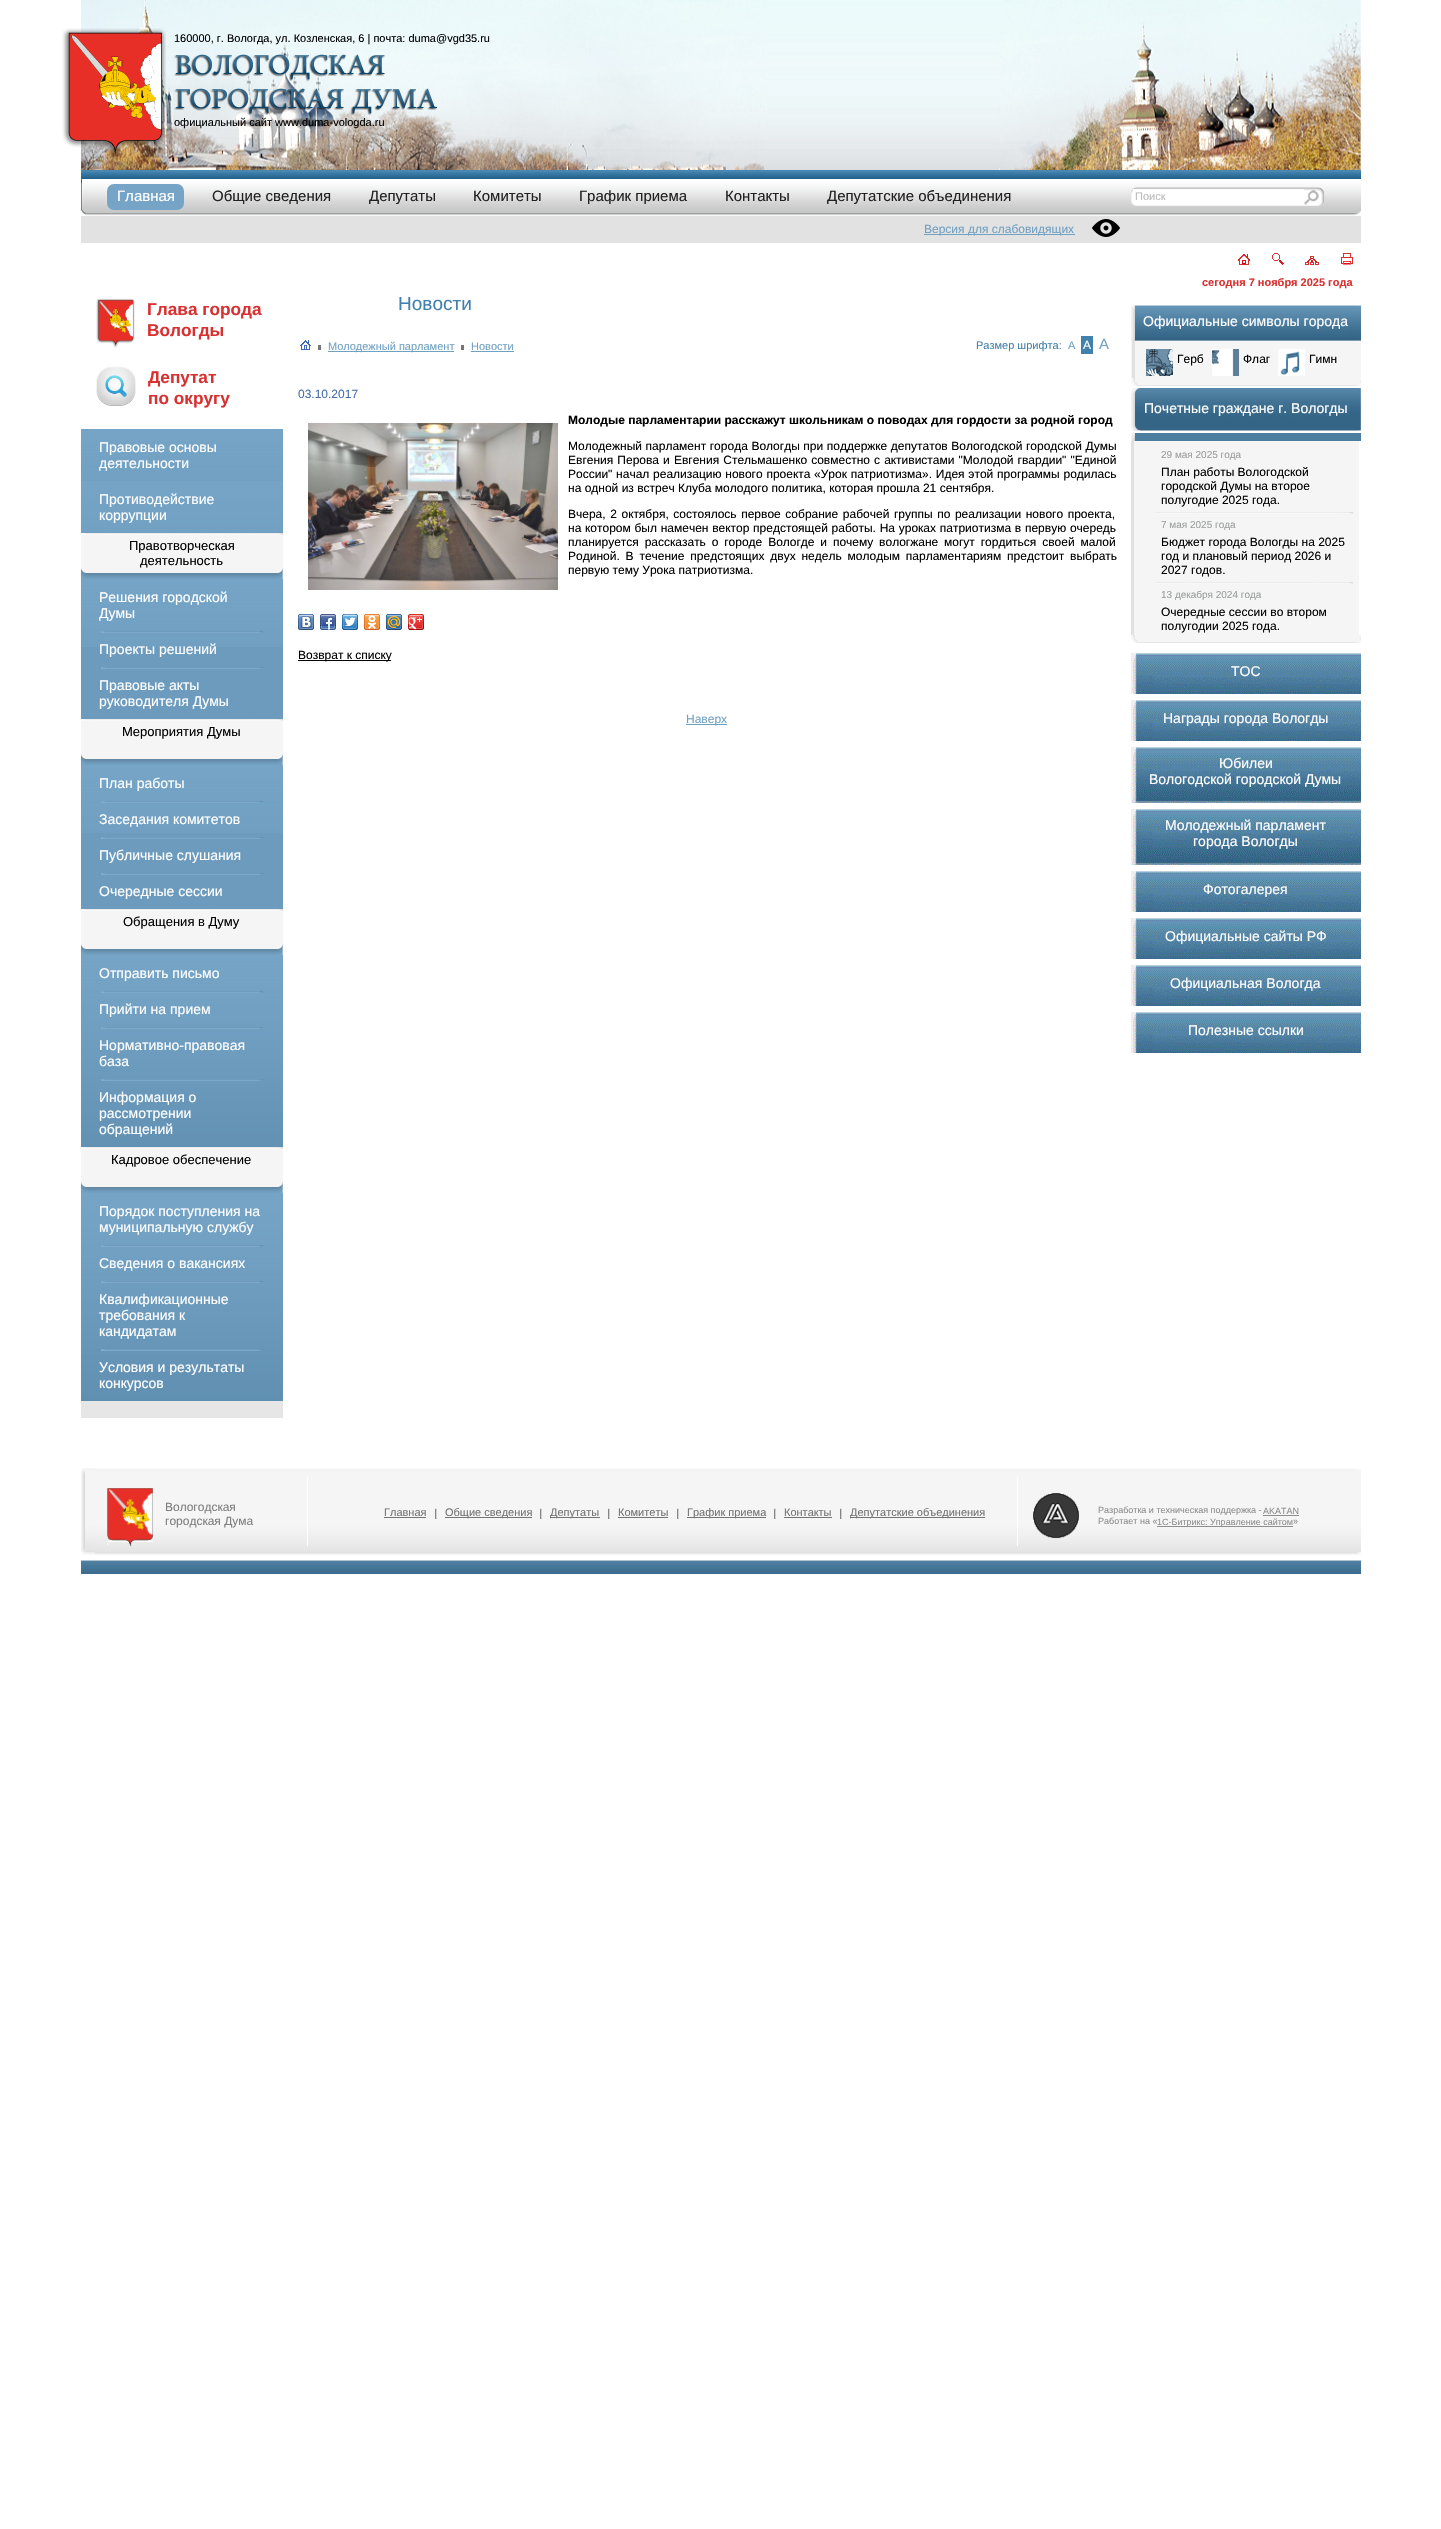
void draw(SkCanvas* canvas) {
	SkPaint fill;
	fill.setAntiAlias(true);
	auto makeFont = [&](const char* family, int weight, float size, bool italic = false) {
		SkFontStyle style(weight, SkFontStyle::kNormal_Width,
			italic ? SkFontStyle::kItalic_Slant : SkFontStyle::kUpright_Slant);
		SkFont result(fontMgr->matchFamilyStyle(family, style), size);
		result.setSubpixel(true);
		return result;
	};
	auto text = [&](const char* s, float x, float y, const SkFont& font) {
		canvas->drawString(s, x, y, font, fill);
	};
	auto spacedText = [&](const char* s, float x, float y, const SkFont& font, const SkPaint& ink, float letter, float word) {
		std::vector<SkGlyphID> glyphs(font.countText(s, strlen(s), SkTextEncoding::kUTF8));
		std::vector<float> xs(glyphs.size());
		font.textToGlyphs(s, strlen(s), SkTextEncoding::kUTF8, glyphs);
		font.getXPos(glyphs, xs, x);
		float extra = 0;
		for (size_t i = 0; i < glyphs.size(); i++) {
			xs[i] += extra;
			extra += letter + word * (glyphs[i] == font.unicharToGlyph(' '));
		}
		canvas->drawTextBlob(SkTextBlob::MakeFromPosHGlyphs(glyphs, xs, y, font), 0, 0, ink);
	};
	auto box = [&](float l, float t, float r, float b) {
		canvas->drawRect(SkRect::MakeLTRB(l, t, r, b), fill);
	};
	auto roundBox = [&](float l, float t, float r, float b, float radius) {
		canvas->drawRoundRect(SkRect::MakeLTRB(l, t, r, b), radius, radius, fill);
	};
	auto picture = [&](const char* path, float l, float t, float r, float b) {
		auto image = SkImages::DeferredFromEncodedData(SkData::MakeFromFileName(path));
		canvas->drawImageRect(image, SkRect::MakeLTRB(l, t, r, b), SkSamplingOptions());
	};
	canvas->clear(0xFFFFFFFF);
	picture("image0.png", 81, 0, 768, 170);
	picture("image1.png", 62, 28, 166, 159);
	picture("image2.png", 174, 54, 437, 115);
	picture("image3.png", 768, 0, 998, 170);
	picture("image4.png", 998, 0, 1361, 170);
	picture("image5.png", 81, 170, 1361, 179);
	fill.setColor(0xFFE2E2E3);
	box(81, 216, 1361, 243);
	picture("image6.png", 81, 179, 107, 216);
	picture("image7.png", 107, 179, 1344, 216);
	fill.setColor(0xFF75A4C6);
	roundBox(107, 184, 184, 210, 7);
	picture("image8.png", 1131, 187, 1304, 206);
	fill.setColor(0xFFFFFFFF);
	box(1133, 189, 1304, 192);
	picture("image9.png", 1304, 187, 1324, 206);
	fill.setColor(0xFF71A1C1);
	box(924, 234, 1075, 235);
	picture("image10.png", 1092, 219, 1120, 237);
	picture("image11.png", 1344, 179, 1361, 216);
	picture("image12.png", 96, 298, 135, 348);
	picture("image13.png", 96, 366, 136, 406);
	picture("image14.png", 81, 429, 283, 481);
	picture("image14.png", 81, 481, 283, 533);
	picture("image15.png", 81, 533, 283, 579);
	fill.setColor(0xFF6C9BBD);
	box(81, 647, 283, 719);
	picture("image16.png", 81, 579, 283, 647);
	picture("image17.png", 101, 631, 263, 633);
	picture("image17.png", 101, 667, 263, 669);
	picture("image15.png", 81, 719, 283, 765);
	box(81, 833, 283, 909);
	picture("image16.png", 81, 765, 283, 833);
	picture("image17.png", 101, 801, 263, 803);
	picture("image17.png", 101, 837, 263, 839);
	picture("image17.png", 101, 873, 263, 875);
	picture("image15.png", 81, 909, 283, 955);
	picture("image18.png", 81, 955, 283, 1147);
	picture("image17.png", 101, 991, 263, 993);
	picture("image17.png", 101, 1027, 263, 1029);
	picture("image17.png", 101, 1079, 263, 1081);
	picture("image15.png", 81, 1147, 283, 1193);
	picture("image19.png", 81, 1193, 283, 1401);
	picture("image17.png", 101, 1245, 263, 1247);
	picture("image17.png", 101, 1281, 263, 1283);
	picture("image17.png", 101, 1349, 263, 1351);
	fill.setColor(0xFFE6E6E6);
	box(81, 1401, 283, 1418);
	picture("image20.png", 300, 340, 311, 350);
	fill.setColor(0xFF777575);
	box(318, 345, 321, 350);
	fill.setColor(0xFF71A1C1);
	box(328, 351, 454, 352);
	fill.setColor(0xFF777575);
	box(461, 345, 464, 350);
	fill.setColor(0xFF71A1C1);
	box(471, 351, 514, 352);
	fill.setColor(0xFF4281AC);
	box(1081, 336, 1093, 354);
	picture("image21.png", 308, 423, 558, 590);
	picture("image22.png", 298, 614, 314, 630);
	picture("image23.png", 320, 614, 336, 630);
	picture("image24.png", 342, 614, 358, 630);
	picture("image25.png", 364, 614, 380, 630);
	picture("image26.png", 386, 614, 402, 630);
	picture("image27.png", 408, 614, 424, 630);
	fill.setColor(0xFF000000);
	box(298, 660, 391, 661);
	fill.setColor(0xFF71A1C1);
	box(686, 724, 727, 725);
	picture("image28.png", 1238, 254, 1250, 265);
	picture("image29.png", 1272, 253, 1284, 265);
	picture("image30.png", 1305, 256, 1319, 265);
	picture("image31.png", 1341, 253, 1353, 265);
	picture("image32.png", 1131, 305, 1361, 341);
	fill.setColor(0xFFF5F5F5);
	box(1131, 341, 1361, 378);
	fill.setColor(0xFFE1E1E1);
	box(1132, 341, 1135, 378);
	picture("image33.png", 1146, 349, 1173, 376);
	picture("image34.png", 1212, 349, 1239, 376);
	picture("image35.png", 1278, 349, 1305, 376);
	picture("image36.png", 1131, 378, 1361, 386);
	picture("image37.png", 1131, 388, 1361, 431);
	fill.setColor(0xFF4D7E9F);
	box(1131, 433, 1361, 441);
	picture("image38.png", 1131, 433, 1135, 441);
	fill.setColor(0xFFF5F5F5);
	box(1134, 441, 1359, 635);
	fill.setColor(0xFFE1E1E1);
	box(1131, 441, 1134, 635);
	picture("image39.png", 1155, 512, 1353, 514);
	picture("image39.png", 1155, 582, 1353, 584);
	picture("image36.png", 1131, 635, 1361, 643);
	picture("image40.png", 1131, 653, 1361, 694);
	picture("image40.png", 1131, 700, 1361, 741);
	picture("image41.png", 1131, 747, 1361, 803);
	picture("image41.png", 1131, 809, 1361, 865);
	picture("image40.png", 1131, 871, 1361, 912);
	picture("image40.png", 1131, 918, 1361, 959);
	picture("image40.png", 1131, 965, 1361, 1006);
	picture("image40.png", 1131, 1012, 1361, 1053);
	picture("image42.png", 81, 1468, 95, 1555);
	fill.setColor(0xFFF5F5F5);
	box(95, 1554, 1348, 1555);
	picture("image43.png", 95, 1468, 1348, 1554);
	fill.setColor(0xFFFFFFFF);
	box(307, 1477, 308, 1546);
	picture("image44.png", 107, 1488, 153, 1546);
	fill.setColor(0xFF747474);
	box(384, 1517, 426, 1518);
	picture("image45.png", 435, 1508, 437, 1519);
	box(445, 1517, 532, 1518);
	picture("image45.png", 540, 1508, 542, 1519);
	box(550, 1517, 600, 1518);
	picture("image45.png", 608, 1508, 610, 1519);
	box(618, 1517, 668, 1518);
	picture("image45.png", 677, 1508, 679, 1519);
	box(687, 1517, 766, 1518);
	picture("image45.png", 774, 1508, 776, 1519);
	box(784, 1517, 832, 1518);
	picture("image45.png", 840, 1508, 842, 1519);
	box(850, 1517, 985, 1518);
	fill.setColor(0xFFFFFFFF);
	box(1017, 1477, 1018, 1546);
	picture("image46.png", 1033, 1493, 1079, 1539);
	fill.setColor(0xFF8E8E8E);
	box(1263, 1515, 1299, 1516);
	box(1157, 1526, 1293, 1527);
	picture("image47.png", 1348, 1468, 1361, 1555);
	picture("image48.png", 81, 1560, 1361, 1574);
	auto font1 = makeFont("Liberation Sans", 400, 11);
	fill.setColor(0xFF000000);
	text("160000, г. Вологда, ул. Козленская, 6 | почта: duma@vgd35.ru", 174, 42, font1);
	text("официальный сайт www.duma-vologda.ru", 174, 126, font1);
	auto font2 = makeFont("Liberation Sans", 400, 15);
	fill.setColor(0xFFFFFFFF);
	text("Главная", 117, 201, font2);
	fill.setColor(0xFF212121);
	text("Общие сведения", 212, 201, font2);
	text("Депутаты", 369, 201, font2);
	text("Комитеты", 473, 201, font2);
	text("График приема", 579, 201, font2);
	text("Контакты", 725, 201, font2);
	text("Депутатские объединения", 827, 201, font2);
	fill.setColor(0xFFBBBBBB);
	text("Поиск", 1135, 200, font1);
	auto font3 = makeFont("Liberation Sans", 400, 12);
	fill.setColor(0xFF71A1C1);
	text("Версия для слабовидящих", 924, 233, font3);
	auto font4 = makeFont("Liberation Sans", 700, 17.25f);
	fill.setColor(0xFFD73131);
	text("Глава города", 147, 315, font4);
	text("Вологды", 147, 336, font4);
	text("Депутат", 148, 383, font4);
	text("по округу", 148, 404, font4);
	auto font5 = makeFont("Liberation Sans", 400, 14);
	fill.setColor(0xFFFFFFFF);
	text("Правовые основы", 99, 452, font5);
	text("деятельности", 99, 468, font5);
	text("Противодействие", 99, 504, font5);
	text("коррупции", 99, 520, font5);
	auto font6 = makeFont("Liberation Sans", 400, 13);
	fill.setColor(0xFF000000);
	text("Правотворческая", 129, 550, font6);
	text("деятельность", 140, 565, font6);
	fill.setColor(0xFFFFFFFF);
	text("Решения городской", 99, 602, font5);
	text("Думы", 99, 618, font5);
	text("Проекты решений", 99, 654, font5);
	text("Правовые акты", 99, 690, font5);
	text("руководителя Думы", 99, 706, font5);
	fill.setColor(0xFF000000);
	text("Мероприятия Думы", 122, 736, font6);
	fill.setColor(0xFFFFFFFF);
	text("План работы", 99, 788, font5);
	text("Заседания комитетов", 99, 824, font5);
	text("Публичные слушания", 99, 860, font5);
	text("Очередные сессии", 99, 896, font5);
	fill.setColor(0xFF000000);
	text("Обращения в Думу", 123, 926, font6);
	fill.setColor(0xFFFFFFFF);
	text("Отправить письмо", 99, 978, font5);
	text("Прийти на прием", 99, 1014, font5);
	text("Нормативно-правовая", 99, 1050, font5);
	text("база", 99, 1066, font5);
	text("Информация о", 99, 1102, font5);
	text("рассмотрении", 99, 1118, font5);
	text("обращений", 99, 1134, font5);
	fill.setColor(0xFF000000);
	text("Кадровое обеспечение", 111, 1164, font6);
	fill.setColor(0xFFFFFFFF);
	text("Порядок поступления на", 99, 1216, font5);
	text("муниципальную службу", 99, 1232, font5);
	text("Сведения о вакансиях", 99, 1268, font5);
	text("Квалификационные", 99, 1304, font5);
	text("требования к", 99, 1320, font5);
	text("кандидатам", 99, 1336, font5);
	text("Условия и результаты", 99, 1372, font5);
	text("конкурсов", 99, 1388, font5);
	auto font7 = makeFont("Liberation Sans", 400, 19);
	fill.setColor(0xFF4281AC);
	text("Новости", 398, 310, font7);
	fill.setColor(0xFF71A1C1);
	text("Молодежный парламент", 328, 350, font1);
	text("Новости", 471, 350, font1);
	fill.setColor(0xFF4281AC);
	text("Размер шрифта:", 976, 349, font1);
	fill.setColor(0xFF71A1C1);
	text("А", 1068, 349, font1);
	fill.setColor(0xFFFFFFFF);
	text("А", 1083, 349, font3);
	fill.setColor(0xFF71A1C1);
	text("А", 1099, 349, font2);
	fill.setColor(0xFF486DAA);
	text("03.10.2017", 298, 398, font3);
	auto font8 = makeFont("Liberation Sans", 700, 12);
	fill.setColor(0xFF000000);
	text("Молодые парламентарии расскажут школьникам о поводах для гордости за родной город", 568, 424, font8);
	spacedText("Молодежный парламент города Вологды при поддержке депутатов Вологодской городской Думы", 568, 450, font3, fill, 0, 0.25f);
	spacedText("Евгения Перова и Евгения Стельмашенко совместно с активистами \"Молодой гвардии\" \"Единой", 568, 464, font3, fill, 0, 0.75f);
	spacedText("России\" начал реализацию нового проекта «Урок патриотизма». Идея этой программы родилась", 568, 478, font3, fill, 0, 0.4f);
	text("на одной из встреч Клуба молодого политика, которая прошла 21 сентября.", 568, 492, font3);
	spacedText("Вчера, 2 октября, состоялось первое собрание рабочей группы по реализации нового проекта,", 568, 518, font3, fill, 0, 1.25f);
	spacedText("на котором был намечен вектор предстоящей работы. На уроках патриотизма в первую очередь", 568, 532, font3, fill, 0, 0.4f);
	spacedText("планируется рассказать о городе Вологде и почему вологжане могут гордиться своей малой", 568, 546, font3, fill, 0, 2.5f);
	spacedText("Родиной. В течение предстоящих двух недель молодым парламентариям предстоит выбрать", 568, 560, font3, fill, 0, 2.5f);
	text("первую тему Урока патриотизма.", 568, 574, font3);
	text("Возврат к списку", 298, 659, font3);
	fill.setColor(0xFF71A1C1);
	text("Наверх", 686, 723, font3);
	auto font9 = makeFont("Liberation Sans", 700, 11);
	fill.setColor(0xFFD73131);
	text("сегодня 7 ноября 2025 года", 1202, 286, font9);
	fill.setColor(0xFFFFFFFF);
	text("Официальные символы города", 1143, 326, font5);
	fill.setColor(0xFF000000);
	text("Герб", 1177, 363, font3);
	text("Флаг", 1243, 363, font3);
	text("Гимн", 1309, 363, font3);
	fill.setColor(0xFFFFFFFF);
	text("Почетные граждане г. Вологды", 1144, 413, font5);
	auto font10 = makeFont("Liberation Sans", 400, 10);
	fill.setColor(0xFF9C9E9F);
	text("29 мая 2025 года", 1161, 458, font10);
	fill.setColor(0xFF000000);
	text("План работы Вологодской", 1161, 476, font3);
	text("городской Думы на второе", 1161, 490, font3);
	text("полугодие 2025 года.", 1161, 504, font3);
	fill.setColor(0xFF9C9E9F);
	text("7 мая 2025 года", 1161, 528, font10);
	fill.setColor(0xFF000000);
	text("Бюджет города Вологды на 2025", 1161, 546, font3);
	text("год и плановый период 2026 и", 1161, 560, font3);
	text("2027 годов.", 1161, 574, font3);
	fill.setColor(0xFF9C9E9F);
	text("13 декабря 2024 года", 1161, 598, font10);
	fill.setColor(0xFF000000);
	text("Очередные сессии во втором", 1161, 616, font3);
	text("полугодии 2025 года.", 1161, 630, font3);
	fill.setColor(0xFFFFFFFF);
	text("ТОС", 1231, 676, font5);
	text("Награды города Вологды", 1163, 723, font5);
	text("Юбилеи", 1219, 768, font5);
	text("Вологодской городской Думы", 1149, 784, font5);
	text("Молодежный парламент", 1165, 830, font5);
	text("города Вологды", 1193, 846, font5);
	text("Фотогалерея", 1203, 894, font5);
	text("Официальные сайты РФ", 1165, 941, font5);
	text("Официальная Вологда", 1170, 988, font5);
	text("Полезные ссылки", 1188, 1035, font5);
	fill.setColor(0xFF7E7E7E);
	text("Вологодская", 165, 1511, font3);
	text("городская Дума", 165, 1525, font3);
	fill.setColor(0xFF747474);
	text("Главная", 384, 1516, font1);
	text("Общие сведения", 445, 1516, font1);
	text("Депутаты", 550, 1516, font1);
	text("Комитеты", 618, 1516, font1);
	text("График приема", 687, 1516, font1);
	text("Контакты", 784, 1516, font1);
	text("Депутатские объединения", 850, 1516, font1);
	auto font11 = makeFont("Liberation Sans", 400, 9);
	fill.setColor(0xFF8E8E8E);
	text("Разработка и техническая поддержка -", 1098, 1513, font11);
	text("AKATAN", 1263, 1514, font11);
	text("Работает на «", 1098, 1524, font11);
	text("1С-Битрикс: Управление сайтом", 1157, 1525, font11);
	text("»", 1293, 1524, font11);
}
